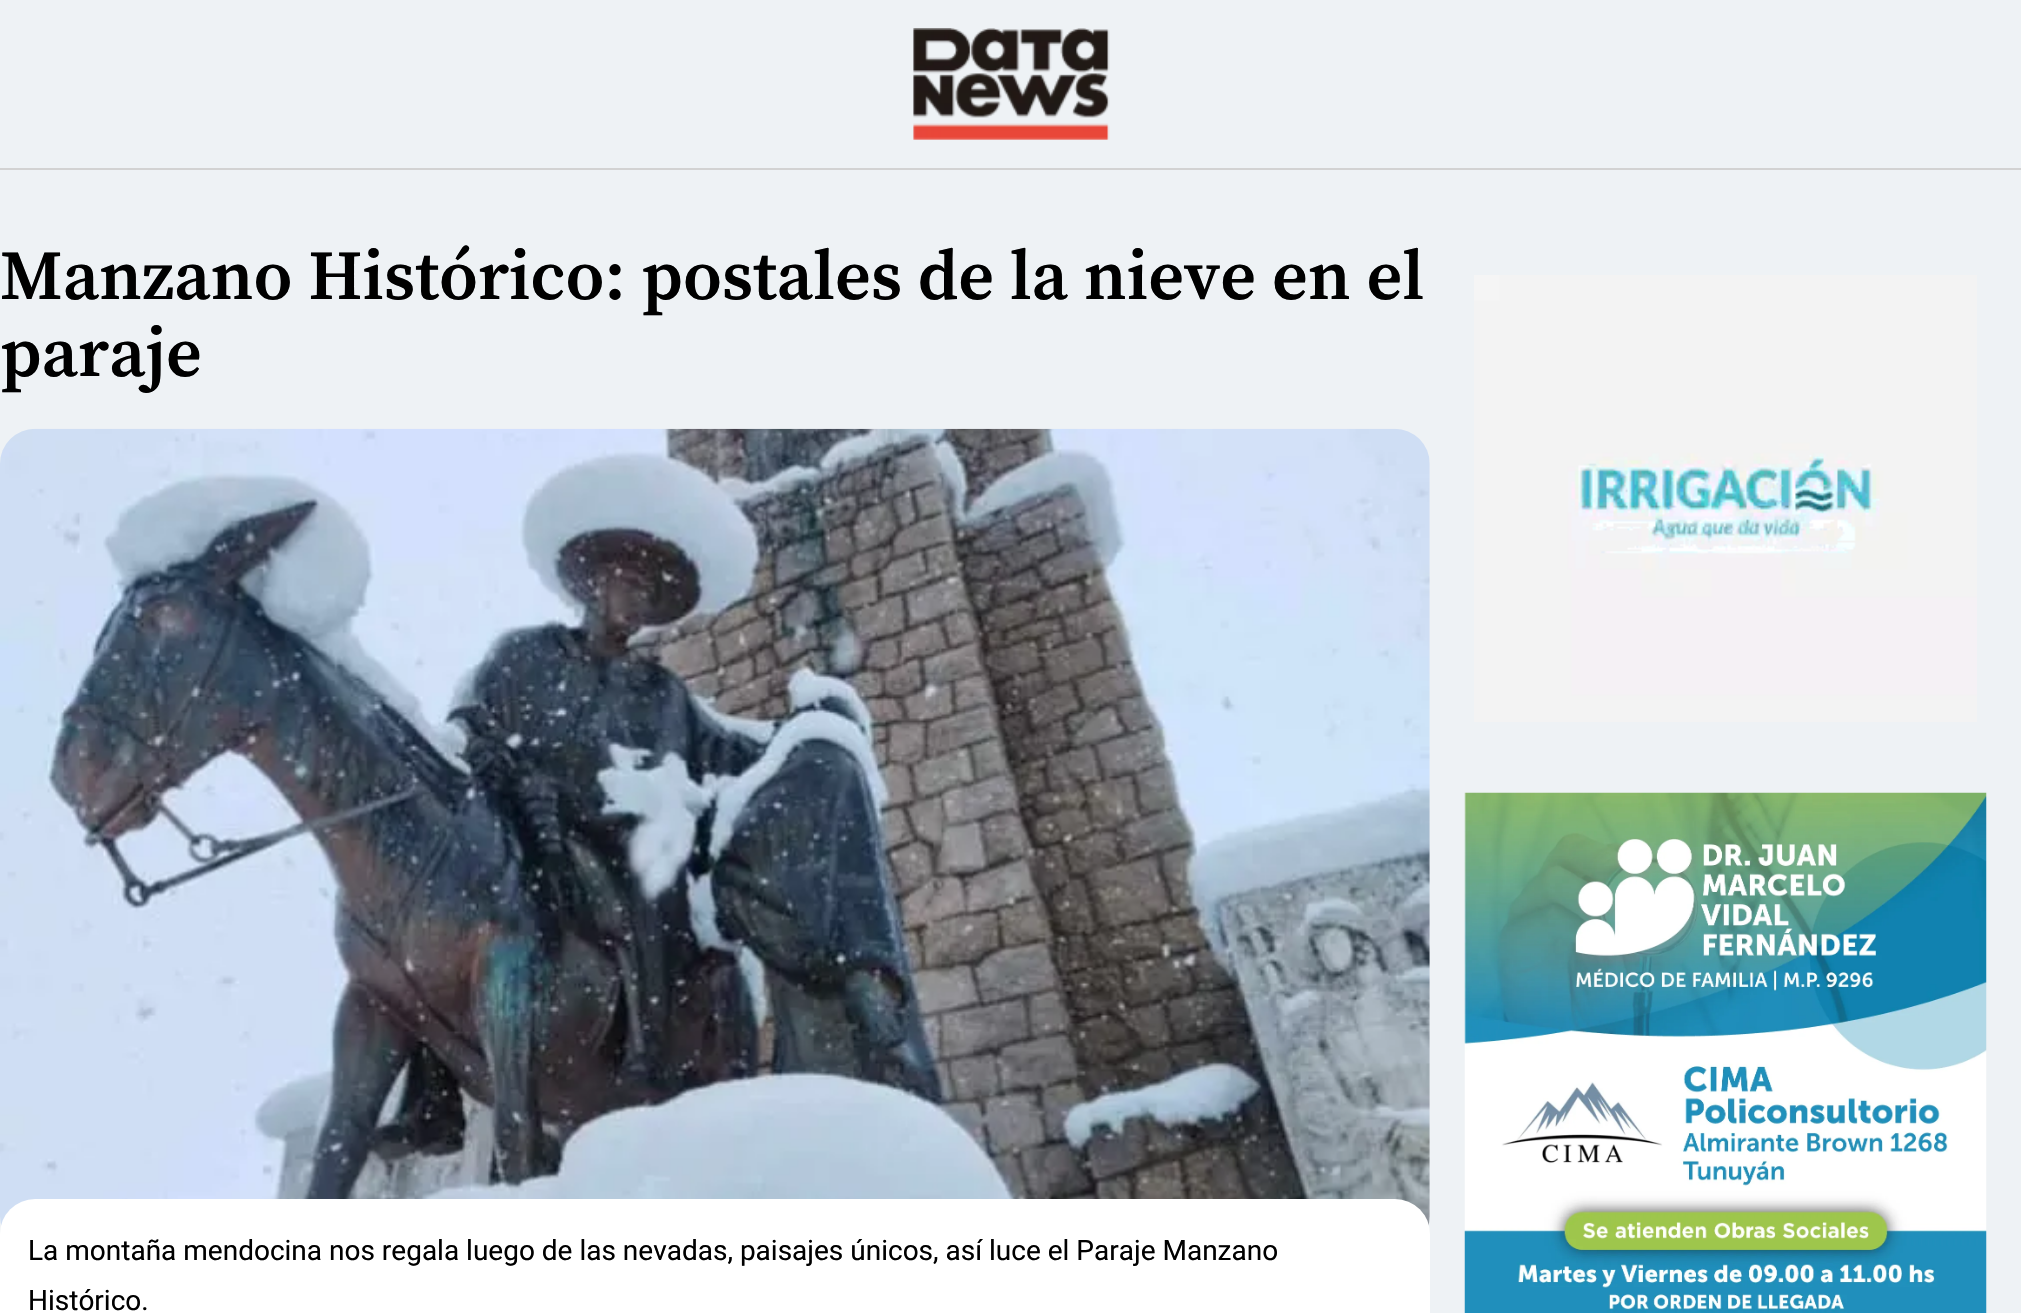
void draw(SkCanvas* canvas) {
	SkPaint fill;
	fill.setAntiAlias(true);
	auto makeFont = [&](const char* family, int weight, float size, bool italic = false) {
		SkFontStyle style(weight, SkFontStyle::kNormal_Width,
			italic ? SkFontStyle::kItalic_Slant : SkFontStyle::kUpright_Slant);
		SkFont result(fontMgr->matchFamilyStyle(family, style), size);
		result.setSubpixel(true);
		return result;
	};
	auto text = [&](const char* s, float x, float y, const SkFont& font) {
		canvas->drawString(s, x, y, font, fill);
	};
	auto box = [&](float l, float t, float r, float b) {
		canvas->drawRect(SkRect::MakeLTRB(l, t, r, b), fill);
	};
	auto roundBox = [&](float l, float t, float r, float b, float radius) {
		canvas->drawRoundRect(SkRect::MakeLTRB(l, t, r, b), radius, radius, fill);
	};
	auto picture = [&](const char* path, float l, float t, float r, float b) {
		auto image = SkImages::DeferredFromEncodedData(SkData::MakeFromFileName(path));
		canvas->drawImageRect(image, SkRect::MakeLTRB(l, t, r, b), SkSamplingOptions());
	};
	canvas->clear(0xFFEEF2F5);
	fill.setColor(0xFFD2D2D2);
	box(0, 168, 2021, 170);
	picture("image0.png", 913, 28, 1110, 140);
	picture("image1.png", 0, 428, 1430, 1226);
	fill.setColor(0xFFFFFFFF);
	roundBox(0, 1199, 1430, 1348, 35);
	picture("image2.png", 1474, 275, 1977, 722);
	picture("image3.png", 1464, 792, 1987, 1313);
	auto font1 = makeFont("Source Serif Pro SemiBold", 600, 70);
	fill.setColor(0xFF000000);
	text("Manzano Histórico: postales de la nieve en el", 0, 299, font1);
	text("paraje", 0, 376, font1);
	auto font2 = makeFont("Roboto", 400, 28);
	text("La montaña mendocina nos regala luego de las nevadas, paisajes únicos, así luce el Paraje Manzano", 28, 1260, font2);
	text("Histórico.", 28, 1310, font2);
}
